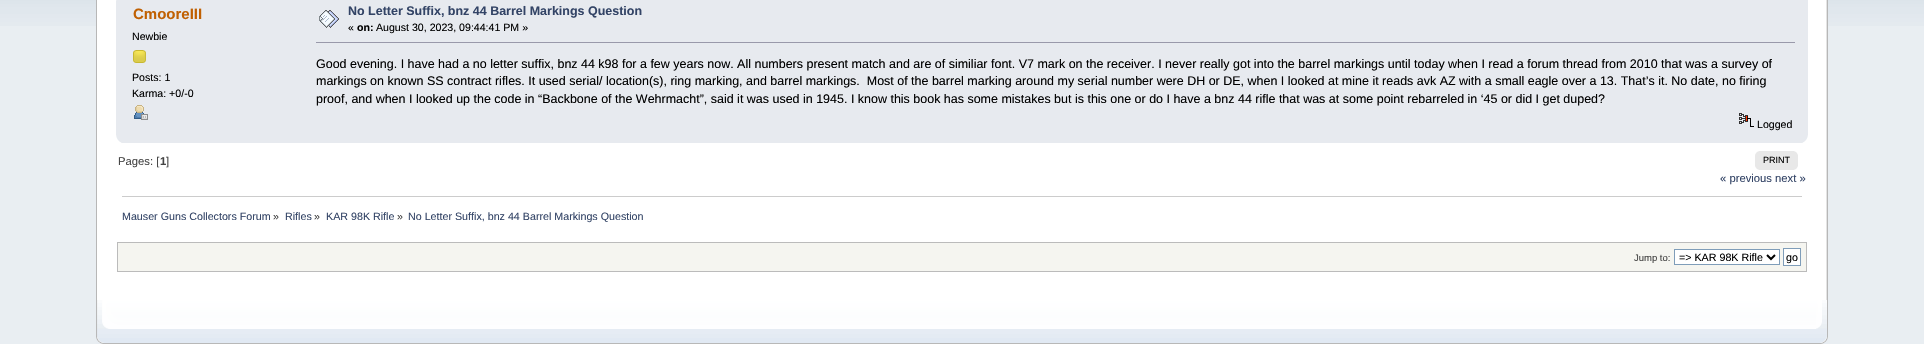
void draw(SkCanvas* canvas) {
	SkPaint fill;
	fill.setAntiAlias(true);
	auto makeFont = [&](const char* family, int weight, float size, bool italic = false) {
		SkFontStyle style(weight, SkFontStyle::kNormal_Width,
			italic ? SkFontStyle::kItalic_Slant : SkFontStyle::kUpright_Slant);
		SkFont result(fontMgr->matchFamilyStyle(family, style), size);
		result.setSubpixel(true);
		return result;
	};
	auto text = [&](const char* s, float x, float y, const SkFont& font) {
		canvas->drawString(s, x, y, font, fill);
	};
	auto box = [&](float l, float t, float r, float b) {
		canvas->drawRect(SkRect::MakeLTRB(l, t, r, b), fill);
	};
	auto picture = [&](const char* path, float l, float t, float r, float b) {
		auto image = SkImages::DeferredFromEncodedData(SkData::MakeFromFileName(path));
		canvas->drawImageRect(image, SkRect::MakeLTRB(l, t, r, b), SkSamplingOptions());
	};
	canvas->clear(0xFFE9EEF2);
	picture("image0.png", 0, 0, 1924, 26);
	fill.setColor(0xFFFFFFFF);
	box(97, 0, 1826, 300);
	fill.setColor(0xFFB7B7B7);
	box(96, 0, 97, 300);
	picture("image1.png", 1826, 0, 1828, 300);
	fill.setColor(0xFFE7EAEF);
	box(116, 0, 1808, 143);
	fill.setColor(0xFFECEEF1);
	box(116, 0, 117, 1);
	picture("image2.png", 133, 50, 146, 63);
	picture("image3.png", 134, 105, 148, 120);
	picture("image4.png", 319, 10, 339, 28);
	fill.setColor(0xFF9999AA);
	box(316, 42, 1795, 43);
	picture("image5.png", 1739, 113, 1754, 127);
	picture("image6.png", 116, 135, 122, 143);
	picture("image7.png", 1802, 135, 1808, 143);
	fill.setColor(0xFFE8E8E8);
	box(1759, 151, 1794, 170);
	picture("image8.png", 1755, 151, 1759, 170);
	picture("image9.png", 1794, 151, 1798, 170);
	fill.setColor(0xFFCCCCCC);
	box(122, 196, 1802, 197);
	fill.setColor(0xFFF5F5F0);
	canvas->drawRect(SkRect::MakeLTRB(117.5f, 242.5f, 1806.5f, 271.5f), fill);
	fill.setStyle(SkPaint::kStroke_Style);
	fill.setStrokeWidth(1);
	fill.setColor(0xFFBBBBBB);
	canvas->drawRect(SkRect::MakeLTRB(117.5f, 242.5f, 1806.5f, 271.5f), fill);
	fill.setStyle(SkPaint::kFill_Style);
	fill.setColor(0xFFFFFFFF);
	canvas->drawRect(SkRect::MakeLTRB(1674.5f, 249.5f, 1779.5f, 264.5f), fill);
	fill.setStyle(SkPaint::kStroke_Style);
	fill.setColor(0xFF7F9DB9);
	canvas->drawRect(SkRect::MakeLTRB(1674.5f, 249.5f, 1779.5f, 264.5f), fill);
	fill.setStrokeWidth(2);
	fill.setColor(0xFF000000);
	canvas->drawPath(SkPathBuilder().moveTo(1767, 255).lineTo(1771, 259).lineTo(1775, 255).detach(), fill);
	fill.setStyle(SkPaint::kFill_Style);
	fill.setColor(0xFFFFFFFF);
	canvas->drawRect(SkRect::MakeLTRB(1783.5f, 248.5f, 1800.5f, 265.5f), fill);
	fill.setStyle(SkPaint::kStroke_Style);
	fill.setStrokeWidth(1);
	fill.setColor(0xFF7F9DB9);
	canvas->drawRect(SkRect::MakeLTRB(1783.5f, 248.5f, 1800.5f, 265.5f), fill);
	picture("image10.png", 96, 300, 1816, 344);
	picture("image11.png", 1816, 300, 1828, 344);
	auto font1 = makeFont("Liberation Sans", 700, 15);
	fill.setStyle(SkPaint::kFill_Style);
	fill.setColor(0xFFC06002);
	text("CmooreIII", 133, 19, font1);
	auto font2 = makeFont("Liberation Sans", 400, 10.6f);
	fill.setColor(0xFF000000);
	text("Newbie", 132, 40, font2);
	text("Posts: 1", 132, 81, font2);
	text("Karma: +0/-0", 132, 97, font2);
	auto font3 = makeFont("Liberation Sans", 700, 12.48f);
	fill.setColor(0xFF334466);
	text("No Letter Suffix, bnz 44 Barrel Markings Question", 348, 15, font3);
	fill.setColor(0xFF000000);
	text("«", 348, 31, font2);
	auto font4 = makeFont("Liberation Sans", 700, 10.6f);
	text("on:", 357, 31, font4);
	text("August 30, 2023, 09:44:41 PM »", 376, 31, font2);
	auto font5 = makeFont("Liberation Sans", 400, 12.48f);
	text("Good evening. I have had a no letter suffix, bnz 44 k98 for a few years now. All numbers present match and are of similiar font. V7 mark on the receiver. I never really got into the barrel markings until today when I read a forum thread from 2010 that was a survey of", 316, 68, font5);
	text("markings on known SS contract rifles. It used serial/ location(s), ring marking, and barrel markings.  Most of the barrel marking around my serial number were DH or DE, when I looked at mine it reads avk AZ with a small eagle over a 13. That’s it. No date, no firing", 316, 85, font5);
	text("proof, and when I looked up the code in “Backbone of the Wehrmacht”, said it was used in 1945. I know this book has some mistakes but is this one or do I have a bnz 44 rifle that was at some point rebarreled in ‘45 or did I get duped?", 316, 103, font5);
	text("Logged", 1757, 128, font2);
	auto font6 = makeFont("Liberation Sans", 400, 11.25f);
	fill.setColor(0xFF444444);
	text("Pages: [", 118, 165, font6);
	auto font7 = makeFont("Liberation Sans", 700, 11.25f);
	text("1", 160, 165, font7);
	text("]", 166, 165, font6);
	auto font8 = makeFont("Liberation Sans", 400, 9);
	fill.setColor(0xFF000000);
	text("PRINT", 1763, 163, font8);
	fill.setColor(0xFF334466);
	text("« previous next »", 1720, 182, font6);
	auto font9 = makeFont("Liberation Sans", 400, 10.7f);
	text("Mauser Guns Collectors Forum", 122, 220, font9);
	fill.setColor(0xFF444444);
	text("»", 273, 220, font9);
	fill.setColor(0xFF334466);
	text("Rifles", 285, 220, font9);
	fill.setColor(0xFF444444);
	text("»", 314, 220, font9);
	fill.setColor(0xFF334466);
	text("KAR 98K Rifle", 326, 220, font9);
	fill.setColor(0xFF444444);
	text("»", 397, 220, font9);
	fill.setColor(0xFF334466);
	text("No Letter Suffix, bnz 44 Barrel Markings Question", 408, 220, font9);
	auto font10 = makeFont("Liberation Sans", 400, 9.5f);
	fill.setColor(0xFF444444);
	text("Jump to:", 1634, 261, font10);
	fill.setColor(0xFF000000);
	text("=> KAR 98K Rifle", 1679, 261, font9);
	text("go", 1786, 261, font9);
}
